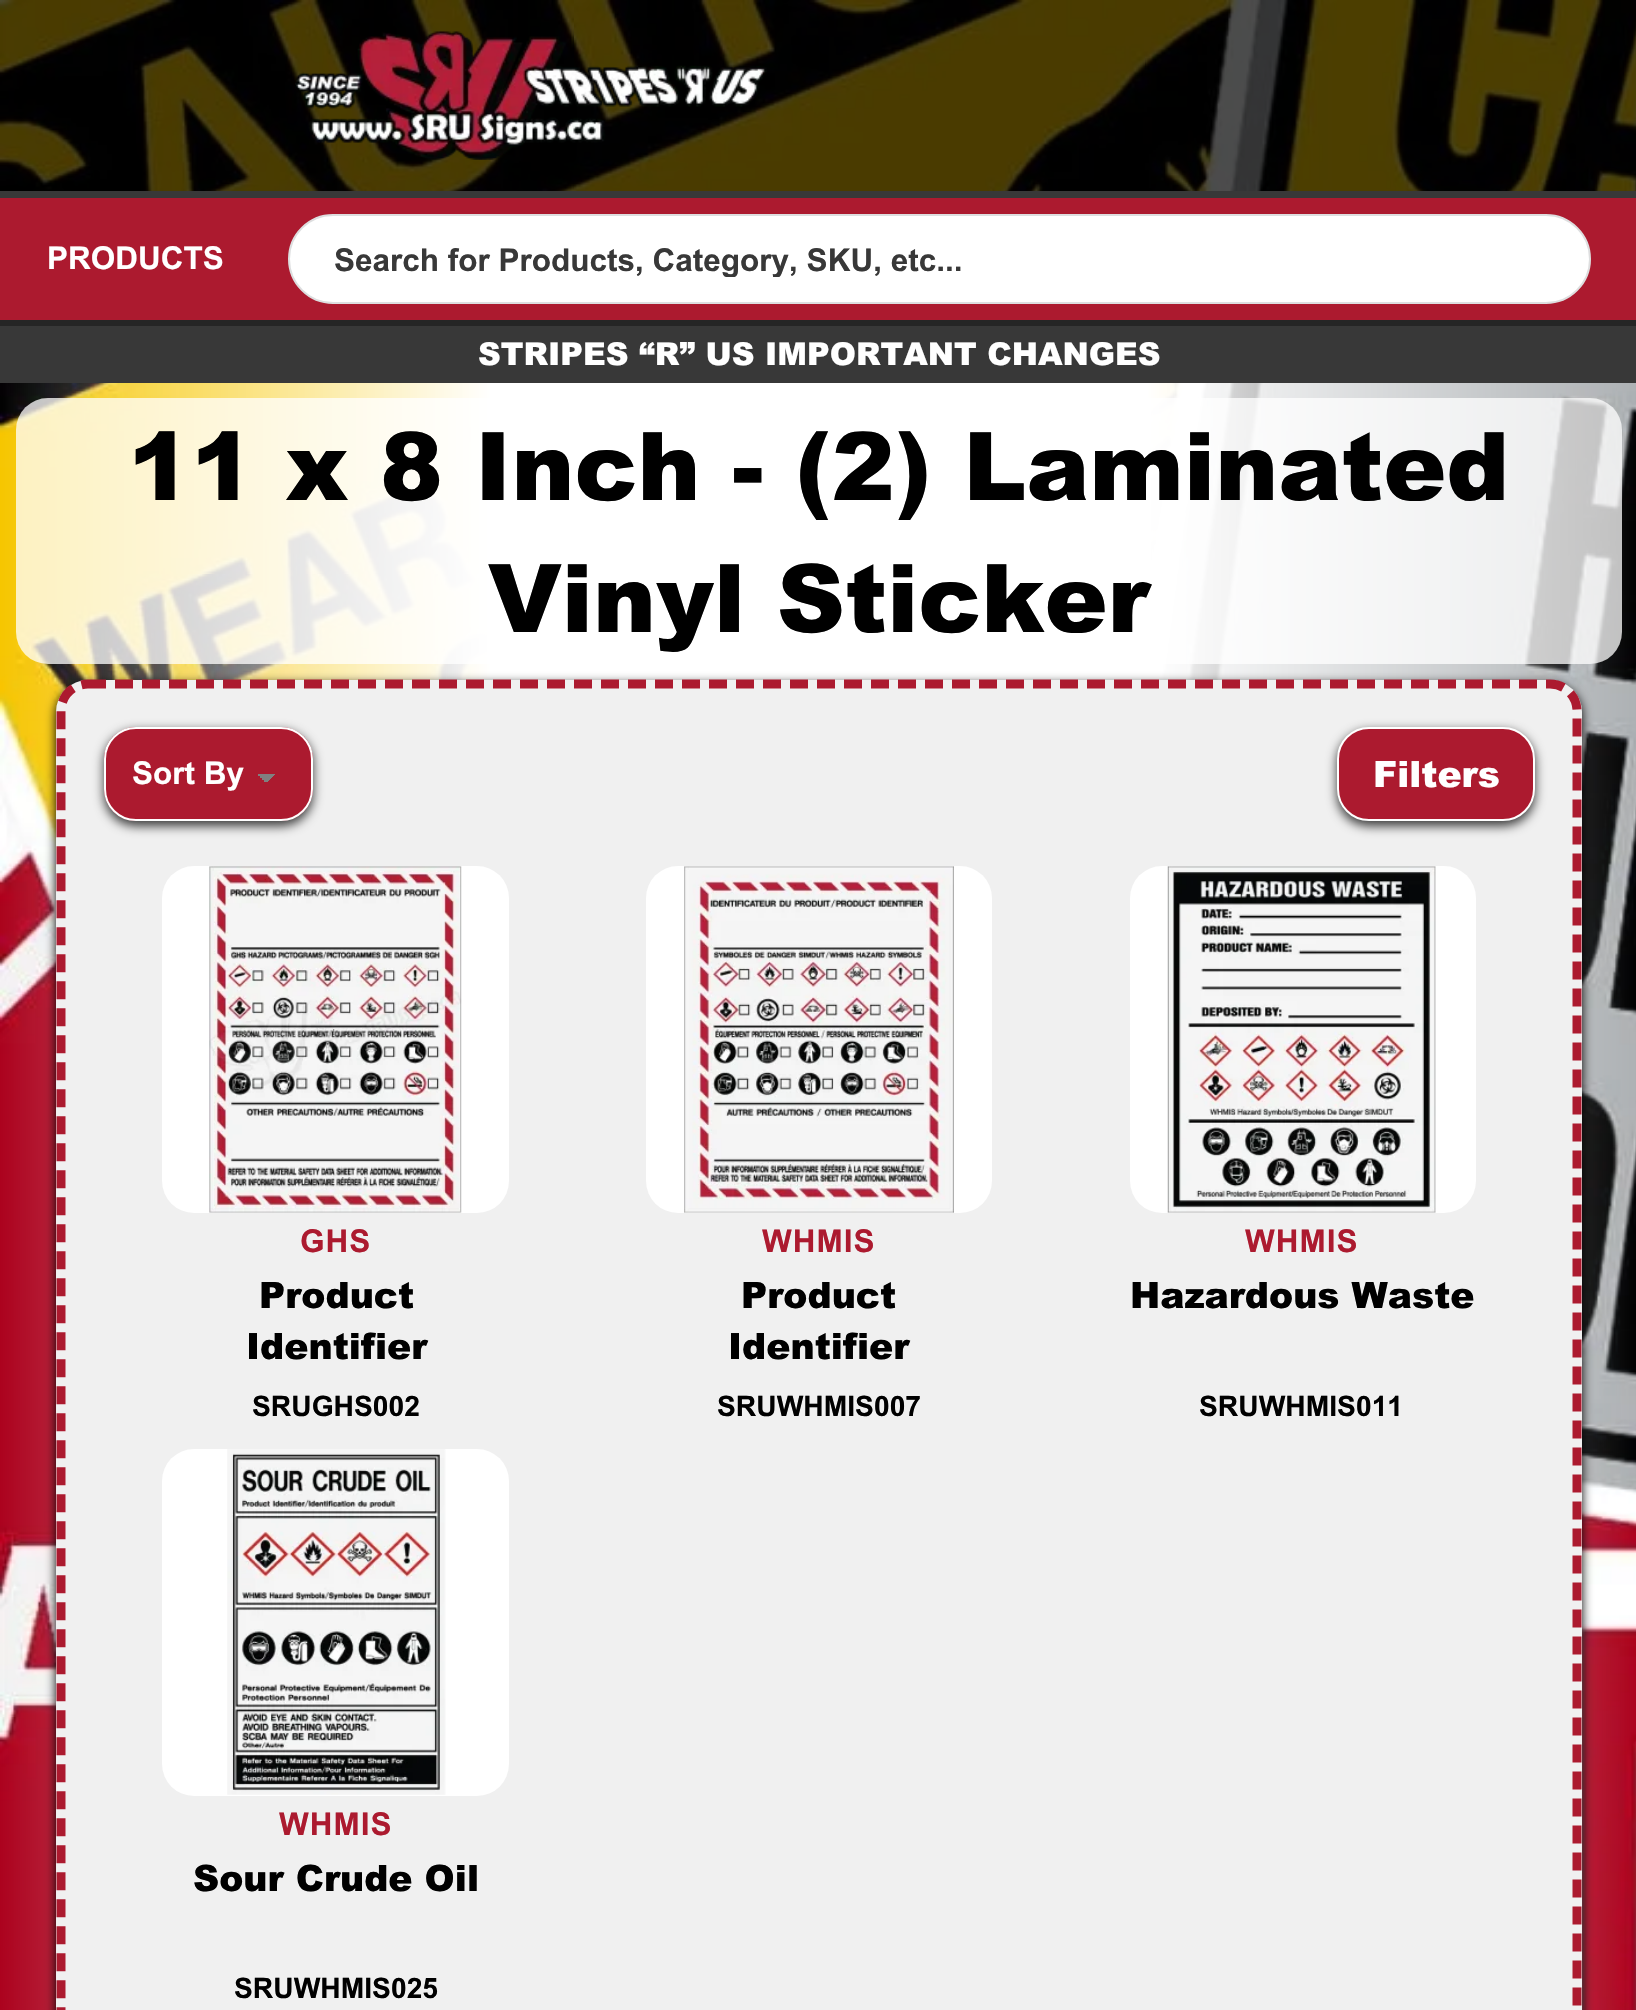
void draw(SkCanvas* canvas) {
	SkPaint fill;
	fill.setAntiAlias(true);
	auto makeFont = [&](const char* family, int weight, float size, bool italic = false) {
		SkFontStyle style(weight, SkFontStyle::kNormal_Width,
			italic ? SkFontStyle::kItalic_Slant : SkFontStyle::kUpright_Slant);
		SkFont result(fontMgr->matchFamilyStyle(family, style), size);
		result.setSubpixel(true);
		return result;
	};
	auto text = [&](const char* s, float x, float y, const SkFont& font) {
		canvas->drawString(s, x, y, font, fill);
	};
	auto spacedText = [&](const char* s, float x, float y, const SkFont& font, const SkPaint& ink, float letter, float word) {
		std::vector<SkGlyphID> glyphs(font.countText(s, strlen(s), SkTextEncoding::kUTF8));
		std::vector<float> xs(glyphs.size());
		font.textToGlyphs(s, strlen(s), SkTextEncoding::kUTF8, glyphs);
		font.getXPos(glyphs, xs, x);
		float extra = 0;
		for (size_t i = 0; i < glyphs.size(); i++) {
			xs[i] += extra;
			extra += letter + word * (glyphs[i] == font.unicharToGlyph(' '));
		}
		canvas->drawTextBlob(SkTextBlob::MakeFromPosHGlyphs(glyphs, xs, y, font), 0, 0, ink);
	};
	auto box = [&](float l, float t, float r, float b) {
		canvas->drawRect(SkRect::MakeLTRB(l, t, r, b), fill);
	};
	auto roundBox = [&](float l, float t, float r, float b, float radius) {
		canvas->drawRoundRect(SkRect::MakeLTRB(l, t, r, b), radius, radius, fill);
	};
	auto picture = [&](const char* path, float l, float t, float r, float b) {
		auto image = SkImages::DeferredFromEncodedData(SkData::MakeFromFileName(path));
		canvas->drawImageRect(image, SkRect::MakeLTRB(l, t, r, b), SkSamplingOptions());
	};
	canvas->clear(0xFFFFFFFF);
	picture("image0.png", 0, 0, 1636, 2010);
	fill.setColor(0xB3000000);
	box(0, 0, 1636, 191);
	picture("image1.png", 295, 31, 767, 160);
	fill.setColor(0xFFAC1A2F);
	box(0, 198, 1636, 320);
	fill.setColor(0xFF383838);
	box(0, 191, 1636, 198);
	fill.setColor(0xFF252525);
	box(0, 320, 1636, 326);
	fill.setColor(0xFFFFFFFF);
	canvas->drawRoundRect(SkRect::MakeLTRB(289, 215, 1590, 303), 44, 44, fill);
	fill.setStyle(SkPaint::kStroke_Style);
	fill.setStrokeWidth(2);
	fill.setColor(0xFFDDDEDF);
	canvas->drawRoundRect(SkRect::MakeLTRB(289, 215, 1590, 303), 44, 44, fill);
	fill.setStyle(SkPaint::kFill_Style);
	fill.setColor(0xFF383838);
	box(0, 326, 1636, 383);
	fill.setColor(0xBFFFFFFF);
	roundBox(16, 398, 1622, 664, 32);
	fill.setColor(0xFF000000);
	fill.setMaskFilter(SkMaskFilter::MakeBlur(kNormal_SkBlurStyle, 5.5f));
	canvas->drawRoundRect(SkRect::MakeLTRB(56, 684, 1582, 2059), 32, 32, fill);
	fill.setMaskFilter(nullptr);
	fill.setColor(0xFFF0F0F0);
	roundBox(56, 680, 1582, 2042, 32);
	fill.setStyle(SkPaint::kStroke_Style);
	fill.setStrokeWidth(9);
	fill.setColor(0xFFAC1A2F);
	fill.setPathEffect(SkDashPathEffect::Make({{18, 9}}, 0));
	canvas->drawPath(SkPathBuilder().moveTo(88, 684).lineTo(1550, 684).cubicTo(1565, 684, 1577, 696, 1577, 711).lineTo(1577, 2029.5f).cubicTo(1577, 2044.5f, 1565, 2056.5f, 1550, 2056.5f).lineTo(88, 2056.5f).cubicTo(73, 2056.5f, 61, 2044.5f, 61, 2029.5f).lineTo(61, 711).cubicTo(61, 696, 73, 684, 88, 684).close().detach(), fill);
	fill.setPathEffect(nullptr);
	fill.setStyle(SkPaint::kFill_Style);
	fill.setColor(0xFF383838);
	fill.setMaskFilter(SkMaskFilter::MakeBlur(kNormal_SkBlurStyle, 5.5f));
	canvas->drawRoundRect(SkRect::MakeLTRB(104, 731, 313, 826), 32, 32, fill);
	fill.setMaskFilter(nullptr);
	fill.setColor(0xFFAC1A2F);
	roundBox(104, 727, 313, 821, 32);
	{
		const SkColor colors[] = {0xFF808080, 0xFFAC1A2F};
		const float stops[] = {0.5f, 0.5f};
		const SkPoint ends[] = {{266, 774}, {275, 783}};
		fill.setShader(SkGradientShader::MakeLinear(ends, colors, stops, 2, SkTileMode::kClamp));
		fill.setAlpha(255);
	}
	box(266, 774, 275, 782);
	{
		const SkColor colors[] = {0xFFAC1A2F, 0xFF808080};
		const float stops[] = {0.5f, 0.5f};
		const SkPoint ends[] = {{257, 783}, {266, 774}};
		fill.setShader(SkGradientShader::MakeLinear(ends, colors, stops, 2, SkTileMode::kClamp));
		fill.setAlpha(255);
	}
	box(257, 774, 266, 782);
	fill.setStyle(SkPaint::kStroke_Style);
	fill.setStrokeWidth(2);
	fill.setShader(nullptr);
	fill.setColor(0xFFFFFFFF);
	canvas->drawRoundRect(SkRect::MakeLTRB(105, 728, 312, 820), 31, 31, fill);
	fill.setStyle(SkPaint::kFill_Style);
	fill.setColor(0xFF383838);
	fill.setMaskFilter(SkMaskFilter::MakeBlur(kNormal_SkBlurStyle, 5.5f));
	canvas->drawRoundRect(SkRect::MakeLTRB(1337, 731, 1535, 826), 32, 32, fill);
	fill.setMaskFilter(nullptr);
	fill.setColor(0xFFAC1A2F);
	canvas->drawRoundRect(SkRect::MakeLTRB(1338, 728, 1534, 820), 31, 31, fill);
	fill.setStyle(SkPaint::kStroke_Style);
	fill.setColor(0xFFFFFFFF);
	canvas->drawRoundRect(SkRect::MakeLTRB(1338, 728, 1534, 820), 31, 31, fill);
	fill.setStyle(SkPaint::kFill_Style);
	roundBox(162, 866, 509, 1213, 32);
	picture("image2.png", 209, 866, 462, 1213);
	roundBox(646, 866, 992, 1213, 32);
	picture("image3.png", 684, 866, 954, 1213);
	roundBox(1130, 866, 1476, 1213, 32);
	picture("image4.png", 1167, 866, 1436, 1213);
	roundBox(162, 1449, 509, 1796, 32);
	picture("image5.png", 227, 1449, 446, 1795);
	auto font1 = makeFont("Arial", 700, 31.5f);
	text("PRODUCTS", 47, 269, font1);
	canvas->save();
	canvas->clipRect(SkRect::MakeLTRB(335, 241, 1535, 277));
	fill.setColor(0xFF383838);
	text("Search for Products, Category, SKU, etc...", 334, 271, font1);
	canvas->restore();
	auto font2 = makeFont("Arial", 900, 31.5f);
	fill.setColor(0xFFFFFFFF);
	text("STRIPES “R” US IMPORTANT CHANGES", 478, 365, font2);
	auto font3 = makeFont("Arial", 900, 94.5f);
	fill.setColor(0xFF000000);
	text("11 x 8 Inch - (2) Laminated", 128, 500, font3);
	text("Vinyl Sticker", 488, 632, font3);
	fill.setColor(0xFFFFFFFF);
	text("Sort By", 132, 784, font1);
	auto font4 = makeFont("Arial", 900, 36.25f);
	text("Filters", 1373, 787, font4);
	fill.setColor(0xFFAC1A2F);
	spacedText("GHS", 300, 1252, font1, fill, 1, 0);
	fill.setColor(0xFF000000);
	text("Product", 259, 1308, font4);
	text("Identifier", 246, 1359, font4);
	auto font5 = makeFont("Arial", 700, 28.25f);
	text("SRUGHS002", 252, 1416, font5);
	fill.setColor(0xFFAC1A2F);
	spacedText("WHMIS", 762, 1252, font1, fill, 1, 0);
	fill.setColor(0xFF000000);
	text("Product", 741, 1308, font4);
	text("Identifier", 728, 1359, font4);
	text("SRUWHMIS007", 717, 1416, font5);
	fill.setColor(0xFFAC1A2F);
	spacedText("WHMIS", 1245, 1252, font1, fill, 1, 0);
	fill.setColor(0xFF000000);
	text("Hazardous Waste", 1130, 1308, font4);
	text("SRUWHMIS011", 1199, 1416, font5);
	fill.setColor(0xFFAC1A2F);
	spacedText("WHMIS", 279, 1835, font1, fill, 1, 0);
	fill.setColor(0xFF000000);
	text("Sour Crude Oil", 193, 1891, font4);
	text("SRUWHMIS025", 234, 1998, font5);
}
